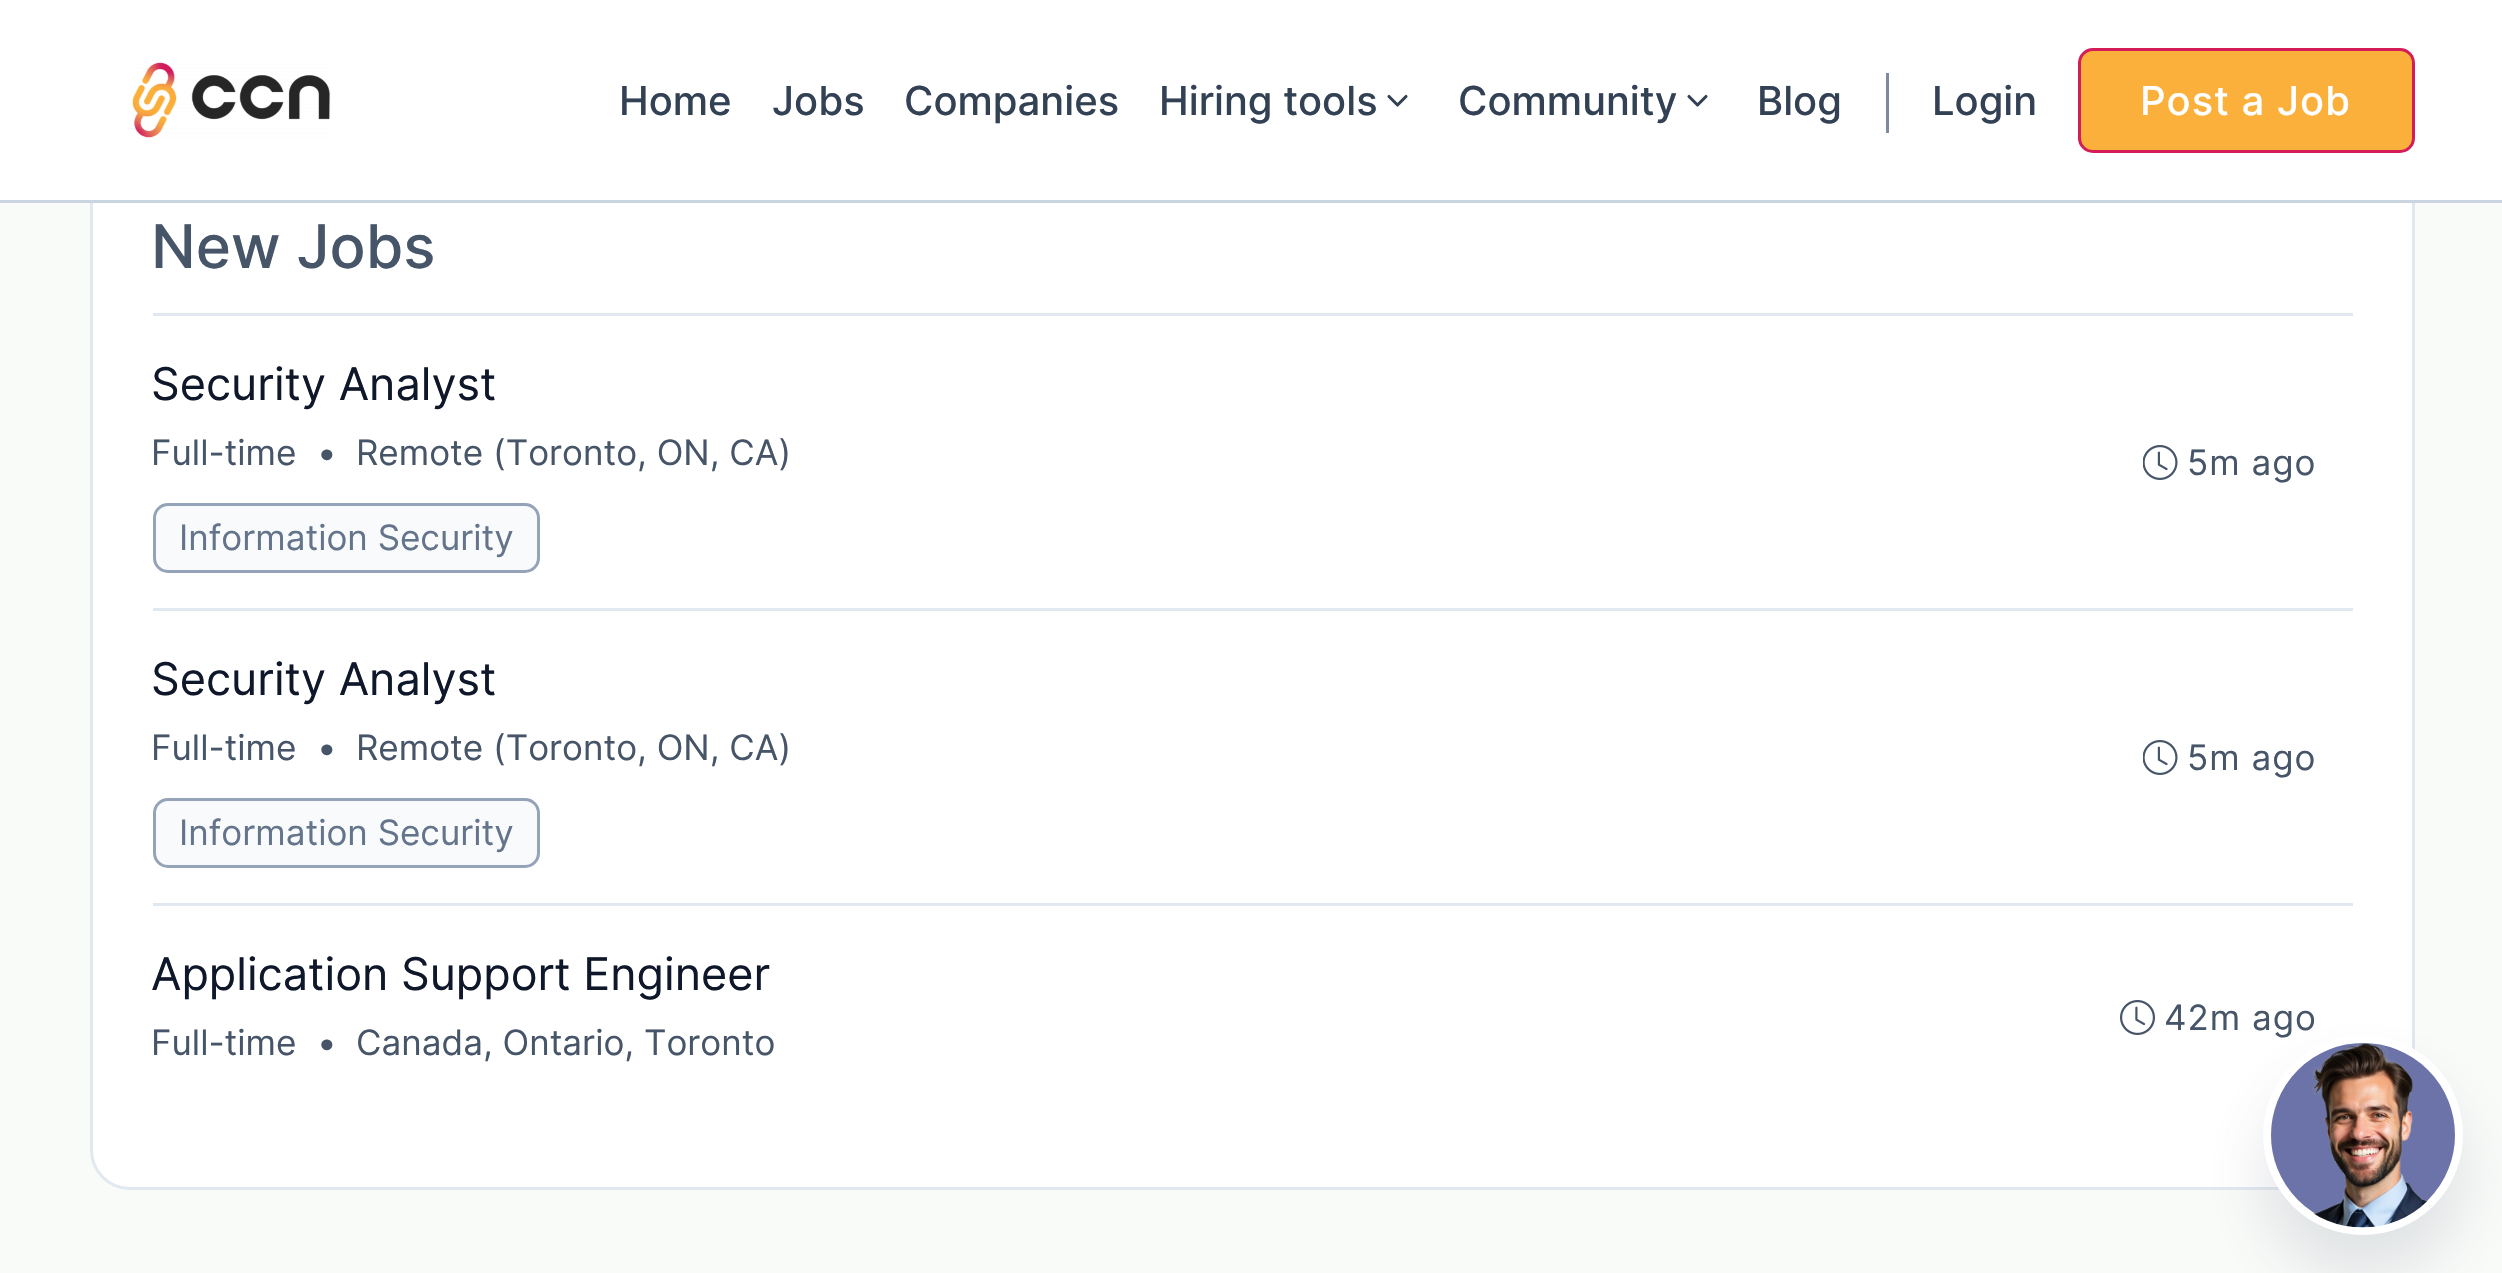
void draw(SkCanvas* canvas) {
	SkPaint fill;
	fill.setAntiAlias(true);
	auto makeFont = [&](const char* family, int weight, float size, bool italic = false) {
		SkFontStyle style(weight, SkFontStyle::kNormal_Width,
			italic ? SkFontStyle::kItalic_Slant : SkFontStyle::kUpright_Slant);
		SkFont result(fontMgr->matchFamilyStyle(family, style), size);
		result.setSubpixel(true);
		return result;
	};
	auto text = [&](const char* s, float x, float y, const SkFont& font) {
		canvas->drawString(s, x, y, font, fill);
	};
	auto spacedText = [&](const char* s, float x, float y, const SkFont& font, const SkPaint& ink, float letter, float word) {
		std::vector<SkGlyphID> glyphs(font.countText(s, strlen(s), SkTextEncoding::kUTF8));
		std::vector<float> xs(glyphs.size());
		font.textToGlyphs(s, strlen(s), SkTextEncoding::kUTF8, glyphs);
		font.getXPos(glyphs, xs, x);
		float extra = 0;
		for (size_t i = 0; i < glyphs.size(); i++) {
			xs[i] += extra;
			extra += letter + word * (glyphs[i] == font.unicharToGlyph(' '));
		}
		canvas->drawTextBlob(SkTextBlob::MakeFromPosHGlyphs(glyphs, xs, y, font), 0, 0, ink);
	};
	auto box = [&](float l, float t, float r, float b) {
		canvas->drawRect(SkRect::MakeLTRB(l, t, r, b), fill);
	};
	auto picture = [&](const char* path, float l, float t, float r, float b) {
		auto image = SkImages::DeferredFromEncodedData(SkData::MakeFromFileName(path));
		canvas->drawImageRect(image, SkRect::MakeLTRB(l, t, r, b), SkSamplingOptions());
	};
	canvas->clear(0xFFF9FBF9);
	fill.setColor(0xFFFFFFFF);
	canvas->drawRoundRect(SkRect::MakeLTRB(91.5f, 141.5f, 2413.5f, 1188.5f), 38.5f, 38.5f, fill);
	fill.setStyle(SkPaint::kStroke_Style);
	fill.setStrokeWidth(3);
	fill.setColor(0xFFE2E8F0);
	canvas->drawRoundRect(SkRect::MakeLTRB(91.5f, 141.5f, 2413.5f, 1188.5f), 38.5f, 38.5f, fill);
	fill.setStyle(SkPaint::kFill_Style);
	fill.setColor(0xFFFFFFFF);
	box(0, 0, 2502, 200);
	fill.setColor(0xFFCBD5E1);
	box(0, 200, 2502, 203);
	picture("image0.png", 132, 62, 331, 138);
	fill.setStyle(SkPaint::kStroke_Style);
	fill.setStrokeWidth(3.1f);
	fill.setStrokeCap(SkPaint::kRound_Cap);
	fill.setStrokeJoin(SkPaint::kRound_Join);
	fill.setColor(0xFF334155);
	canvas->drawPath(SkPathBuilder().moveTo(1389, 96.5f).lineTo(1397.5f, 105).lineTo(1406, 96.5f).detach(), fill);
	canvas->drawPath(SkPathBuilder().moveTo(1689, 96.5f).lineTo(1697.5f, 105).lineTo(1706, 96.5f).detach(), fill);
	fill.setStyle(SkPaint::kFill_Style);
	fill.setColor(0xFF7E8B9E);
	box(1886, 73, 1889, 133);
	fill.setColor(0xFFFBB03B);
	canvas->drawRoundRect(SkRect::MakeLTRB(2079.5f, 49.5f, 2413.5f, 151.5f), 13.5f, 13.5f, fill);
	fill.setStyle(SkPaint::kStroke_Style);
	fill.setStrokeWidth(3);
	fill.setStrokeCap(SkPaint::kButt_Cap);
	fill.setStrokeJoin(SkPaint::kMiter_Join);
	fill.setColor(0xFFD31C58);
	canvas->drawRoundRect(SkRect::MakeLTRB(2079.5f, 49.5f, 2413.5f, 151.5f), 13.5f, 13.5f, fill);
	fill.setStyle(SkPaint::kFill_Style);
	fill.setColor(0xFFE2E8F0);
	box(153, 313, 2353, 316);
	fill.setColor(0xFFF8FAFC);
	canvas->drawRoundRect(SkRect::MakeLTRB(154.5f, 504.5f, 538.5f, 571.5f), 13.5f, 13.5f, fill);
	fill.setStyle(SkPaint::kStroke_Style);
	fill.setColor(0xFF94A3B8);
	canvas->drawRoundRect(SkRect::MakeLTRB(154.5f, 504.5f, 538.5f, 571.5f), 13.5f, 13.5f, fill);
	picture("image1.png", 2143, 445, 2178, 480);
	fill.setStyle(SkPaint::kFill_Style);
	fill.setColor(0xFFE2E8F0);
	box(153, 608, 2353, 611);
	fill.setColor(0xFFF8FAFC);
	canvas->drawRoundRect(SkRect::MakeLTRB(154.5f, 799.5f, 538.5f, 866.5f), 13.5f, 13.5f, fill);
	fill.setStyle(SkPaint::kStroke_Style);
	fill.setColor(0xFF94A3B8);
	canvas->drawRoundRect(SkRect::MakeLTRB(154.5f, 799.5f, 538.5f, 866.5f), 13.5f, 13.5f, fill);
	picture("image1.png", 2143, 740, 2178, 775);
	fill.setStyle(SkPaint::kFill_Style);
	fill.setColor(0xFFE2E8F0);
	box(153, 903, 2353, 906);
	picture("image2.png", 2120, 1000, 2155, 1035);
	fill.setColor(0x29545F6F);
	fill.setMaskFilter(SkMaskFilter::MakeBlur(kNormal_SkBlurStyle, 30));
	canvas->drawRoundRect(SkRect::MakeLTRB(2263, 1075, 2463, 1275), 100, 100, fill);
	fill.setMaskFilter(nullptr);
	auto font1 = makeFont("Inter", 500, 40);
	fill.setColor(0xFF334155);
	text("Home", 619, 115, font1);
	text("Jobs", 772, 115, font1);
	text("Companies", 904, 115, font1);
	text("Hiring tools", 1159, 115, font1);
	text("Community", 1458, 115, font1);
	text("Blog", 1757, 115, font1);
	text("Login", 1932, 115, font1);
	fill.setColor(0xFFFFFFFF);
	spacedText("Post a Job", 2140, 115, font1, fill, 1, 0);
	auto font2 = makeFont("Inter", 500, 60);
	fill.setColor(0xFF475569);
	text("New Jobs", 151, 268, font2);
	auto font3 = makeFont("Inter", 400, 45);
	fill.setColor(0xFF0F172A);
	text("Security Analyst", 151, 400, font3);
	auto font4 = makeFont("Inter", 400, 35);
	fill.setColor(0xFF475569);
	text("Full-time", 151, 465, font4);
	text("•", 317, 465, font4);
	text("Remote (Toronto, ON, CA)", 356, 465, font4);
	fill.setColor(0xFF64748B);
	text("Information Security", 179, 550, font4);
	fill.setColor(0xFF475569);
	spacedText("5m ago", 2187, 475, font4, fill, 1, 0);
	fill.setColor(0xFF0F172A);
	text("Security Analyst", 151, 695, font3);
	fill.setColor(0xFF475569);
	text("Full-time", 151, 760, font4);
	text("•", 317, 760, font4);
	text("Remote (Toronto, ON, CA)", 356, 760, font4);
	fill.setColor(0xFF64748B);
	text("Information Security", 179, 845, font4);
	fill.setColor(0xFF475569);
	spacedText("5m ago", 2187, 770, font4, fill, 1, 0);
	fill.setColor(0xFF0F172A);
	text("Application Support Engineer", 151, 990, font3);
	fill.setColor(0xFF475569);
	text("Full-time", 151, 1055, font4);
	text("•", 317, 1055, font4);
	text("Canada, Ontario, Toronto", 356, 1055, font4);
	spacedText("42m ago", 2164, 1030, font4, fill, 1, 0);
	fill.setColor(0xFF6C73A8);
	canvas->drawCircle(2363, 1135, 96, fill);
	fill.setStyle(SkPaint::kStroke_Style);
	fill.setStrokeWidth(8);
	fill.setColor(0xFFFFFFFF);
	canvas->drawCircle(2363, 1135, 96, fill);
	picture("image3.png", 2311, 1043, 2428, 1228);
}
